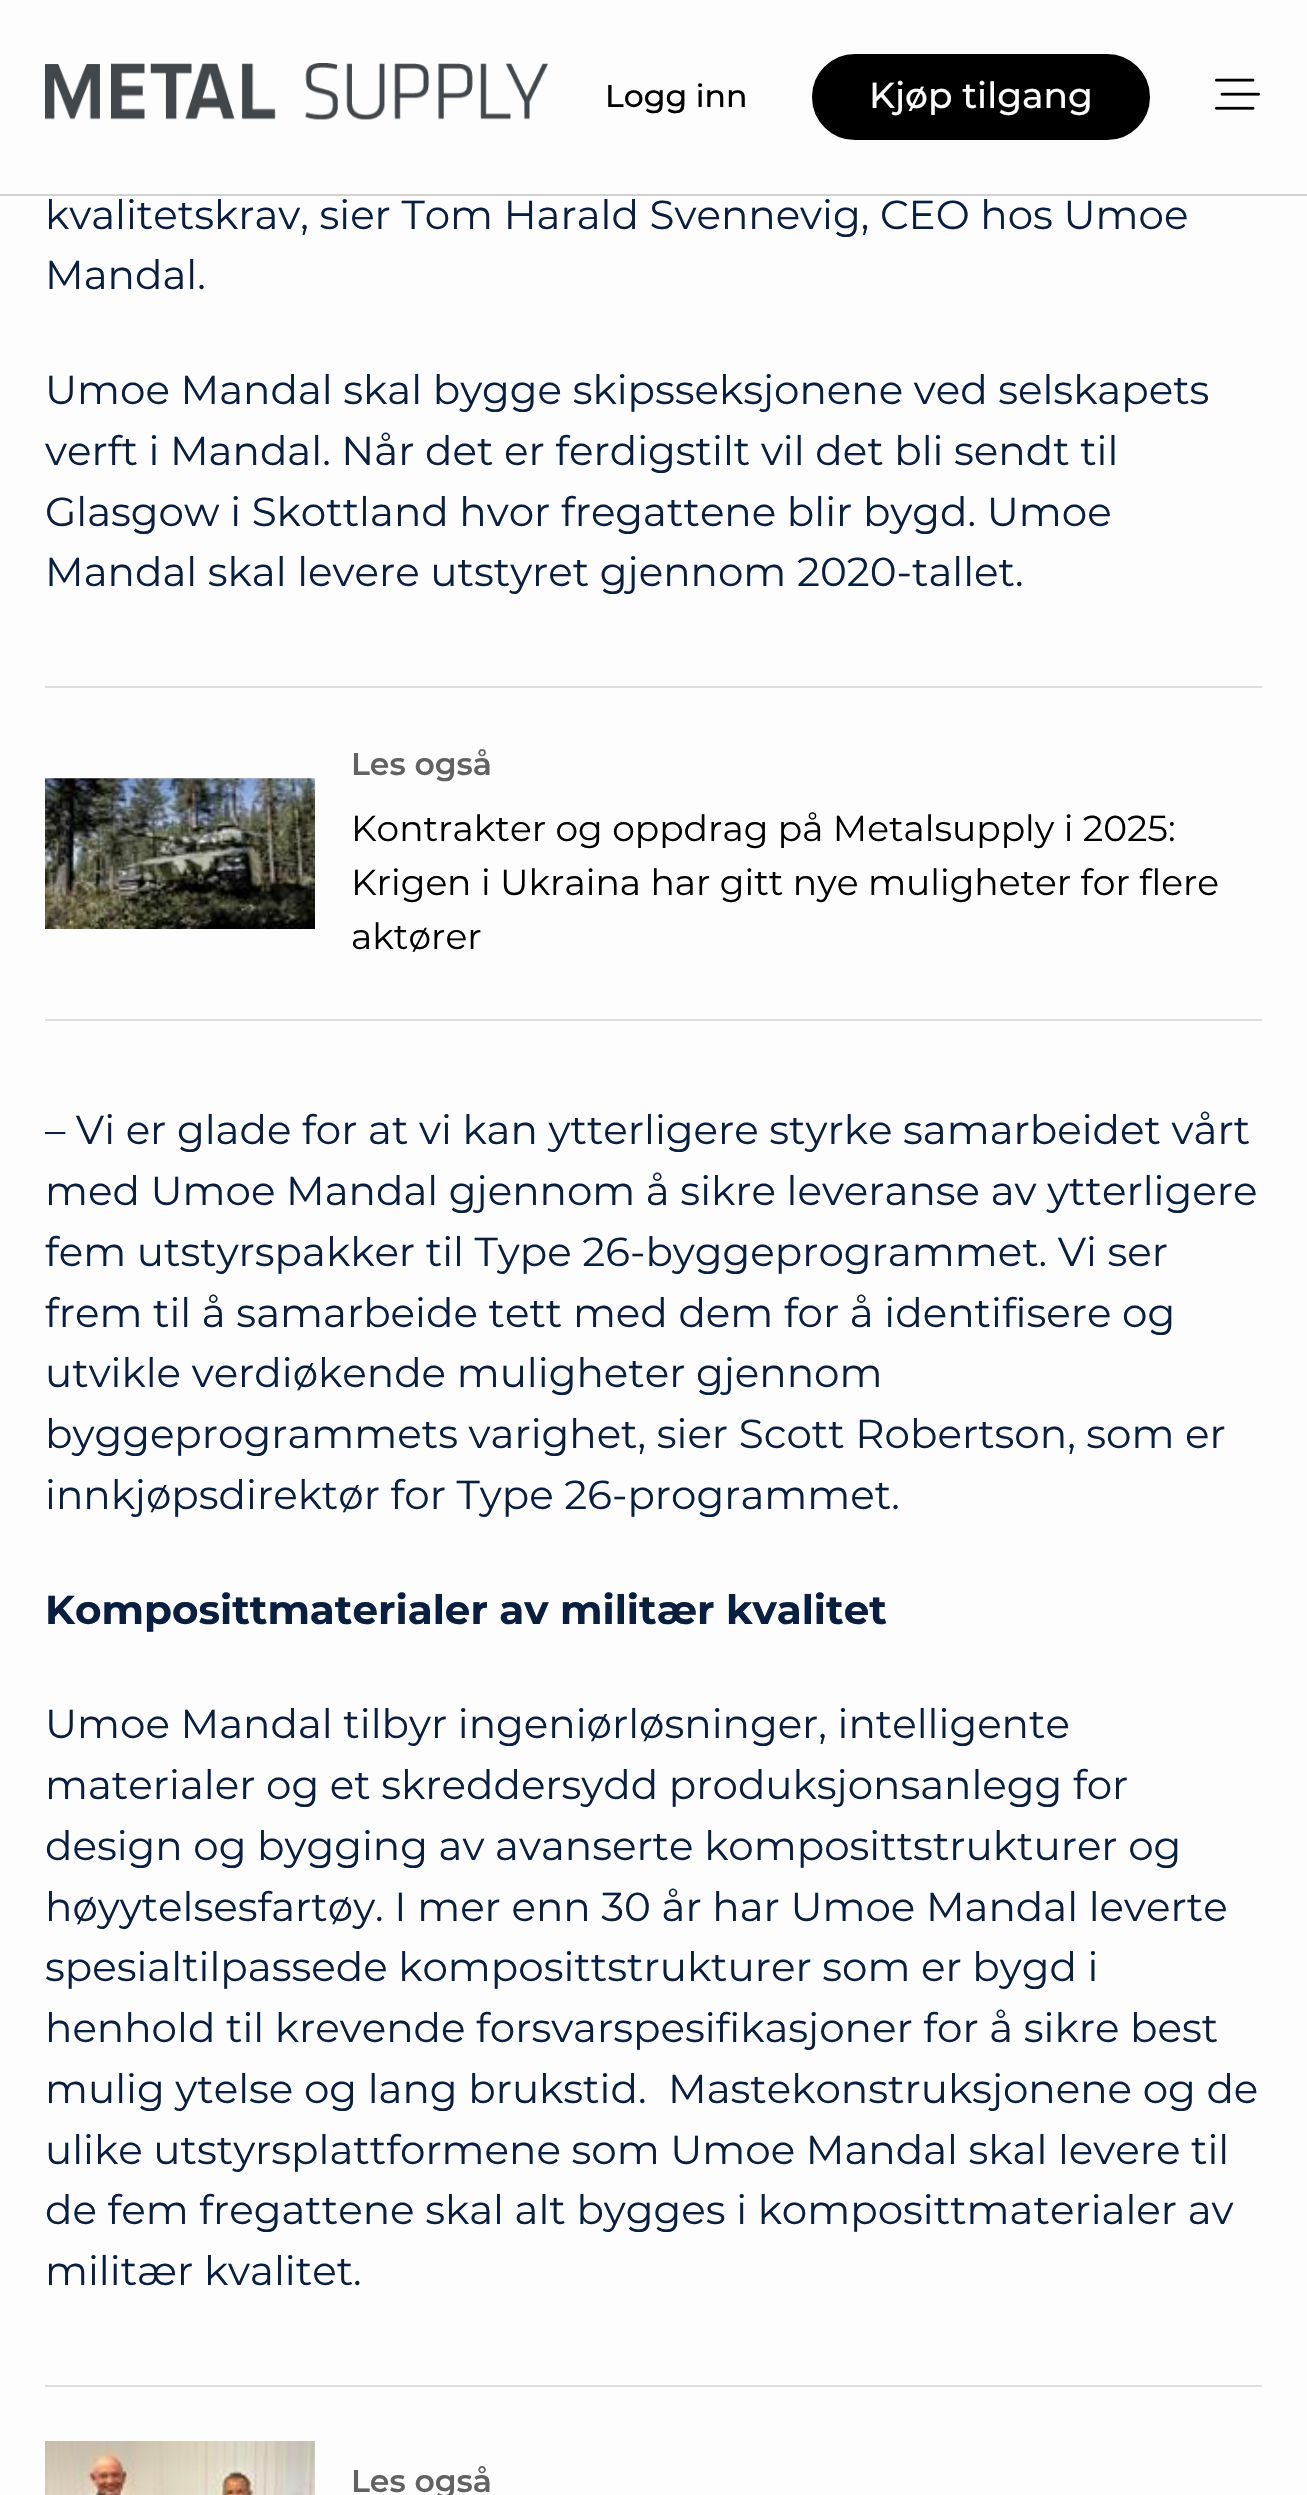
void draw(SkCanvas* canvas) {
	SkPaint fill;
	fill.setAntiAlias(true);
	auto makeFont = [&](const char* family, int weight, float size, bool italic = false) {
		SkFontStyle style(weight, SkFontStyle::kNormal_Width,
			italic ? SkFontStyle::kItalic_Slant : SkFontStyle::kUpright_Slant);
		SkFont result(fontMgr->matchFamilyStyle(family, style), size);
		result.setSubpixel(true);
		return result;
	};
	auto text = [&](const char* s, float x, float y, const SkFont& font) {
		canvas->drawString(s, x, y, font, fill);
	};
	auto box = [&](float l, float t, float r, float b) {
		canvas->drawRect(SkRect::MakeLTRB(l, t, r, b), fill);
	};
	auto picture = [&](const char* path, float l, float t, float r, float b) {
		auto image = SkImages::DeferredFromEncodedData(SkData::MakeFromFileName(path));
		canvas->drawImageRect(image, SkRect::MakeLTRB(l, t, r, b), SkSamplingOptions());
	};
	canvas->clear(0xFFFDFDFD);
	fill.setColor(0xFFD1D1D1);
	box(0, 194, 1307, 196);
	picture("image0.png", 45, 63, 549, 120);
	fill.setColor(0xFF000000);
	canvas->drawRoundRect(SkRect::MakeLTRB(813, 55, 1149, 139), 42, 42, fill);
	fill.setStyle(SkPaint::kStroke_Style);
	fill.setStrokeWidth(2);
	canvas->drawRoundRect(SkRect::MakeLTRB(813, 55, 1149, 139), 42, 42, fill);
	picture("image1.png", 1215, 78, 1260, 110);
	fill.setStyle(SkPaint::kFill_Style);
	fill.setColor(0xFFDFDEDD);
	box(45, 686, 1262, 688);
	box(45, 1019, 1262, 1021);
	picture("image2.png", 45, 778, 315, 929);
	box(45, 2385, 1262, 2387);
	picture("image3.png", 45, 2441, 315, 2495);
	auto font1 = makeFont("Montserrat", 500, 31.5f);
	fill.setColor(0xFF000000);
	text("Logg inn", 605, 107, font1);
	auto font2 = makeFont("Montserrat", 500, 36);
	fill.setColor(0xFFFDFDFD);
	text("Kjøp tilgang", 869, 108, font2);
	auto font3 = makeFont("Montserrat", 400, 40.5f);
	fill.setColor(0xFF0A1F3F);
	text("kvalitetskrav, sier Tom Harald Svennevig, CEO hos Umoe", 45, 229, font3);
	text("Mandal.", 45, 289, font3);
	text("Umoe Mandal skal bygge skipsseksjonene ved selskapets", 45, 404, font3);
	text("verft i Mandal. Når det er ferdigstilt vil det bli sendt til", 45, 465, font3);
	text("Glasgow i Skottland hvor fregattene blir bygd. Umoe", 45, 526, font3);
	text("Mandal skal levere utstyret gjennom 2020-tallet.", 45, 586, font3);
	auto font4 = makeFont("Montserrat", 600, 31.5f);
	fill.setColor(0xFF636262);
	text("Les også", 351, 775, font4);
	auto font5 = makeFont("Montserrat", 400, 36);
	fill.setColor(0xFF000000);
	text("Kontrakter og oppdrag på Metalsupply i 2025:", 351, 841, font5);
	text("Krigen i Ukraina har gitt nye muligheter for flere", 351, 895, font5);
	text("aktører", 351, 949, font5);
	fill.setColor(0xFF0A1F3F);
	text("– Vi er glade for at vi kan ytterligere styrke samarbeidet vårt", 45, 1144, font3);
	text("med Umoe Mandal gjennom å sikre leveranse av ytterligere", 45, 1205, font3);
	text("fem utstyrspakker til Type 26-byggeprogrammet. Vi ser", 45, 1266, font3);
	text("frem til å samarbeide tett med dem for å identifisere og", 45, 1327, font3);
	text("utvikle verdiøkende muligheter gjennom", 45, 1387, font3);
	text("byggeprogrammets varighet, sier Scott Robertson, som er", 45, 1448, font3);
	text("innkjøpsdirektør for Type 26-programmet.", 45, 1509, font3);
	auto font6 = makeFont("Montserrat", 700, 40.5f);
	text("Komposittmaterialer av militær kvalitet", 45, 1624, font6);
	text("Umoe Mandal tilbyr ingeniørløsninger, intelligente", 45, 1738, font3);
	text("materialer og et skreddersydd produksjonsanlegg for", 45, 1799, font3);
	text("design og bygging av avanserte komposittstrukturer og", 45, 1860, font3);
	text("høyytelsesfartøy. I mer enn 30 år har Umoe Mandal leverte", 45, 1921, font3);
	text("spesialtilpassede komposittstrukturer som er bygd i", 45, 1981, font3);
	text("henhold til krevende forsvarspesifikasjoner for å sikre best", 45, 2042, font3);
	text("mulig ytelse og lang brukstid.", 45, 2103, font3);
	text("Mastekonstruksjonene og de", 668, 2103, font3);
	text("ulike utstyrsplattformene som Umoe Mandal skal levere til", 45, 2164, font3);
	text("de fem fregattene skal alt bygges i komposittmaterialer av", 45, 2224, font3);
	text("militær kvalitet.", 45, 2285, font3);
	fill.setColor(0xFF636262);
	text("Les også", 351, 2492, font4);
}
